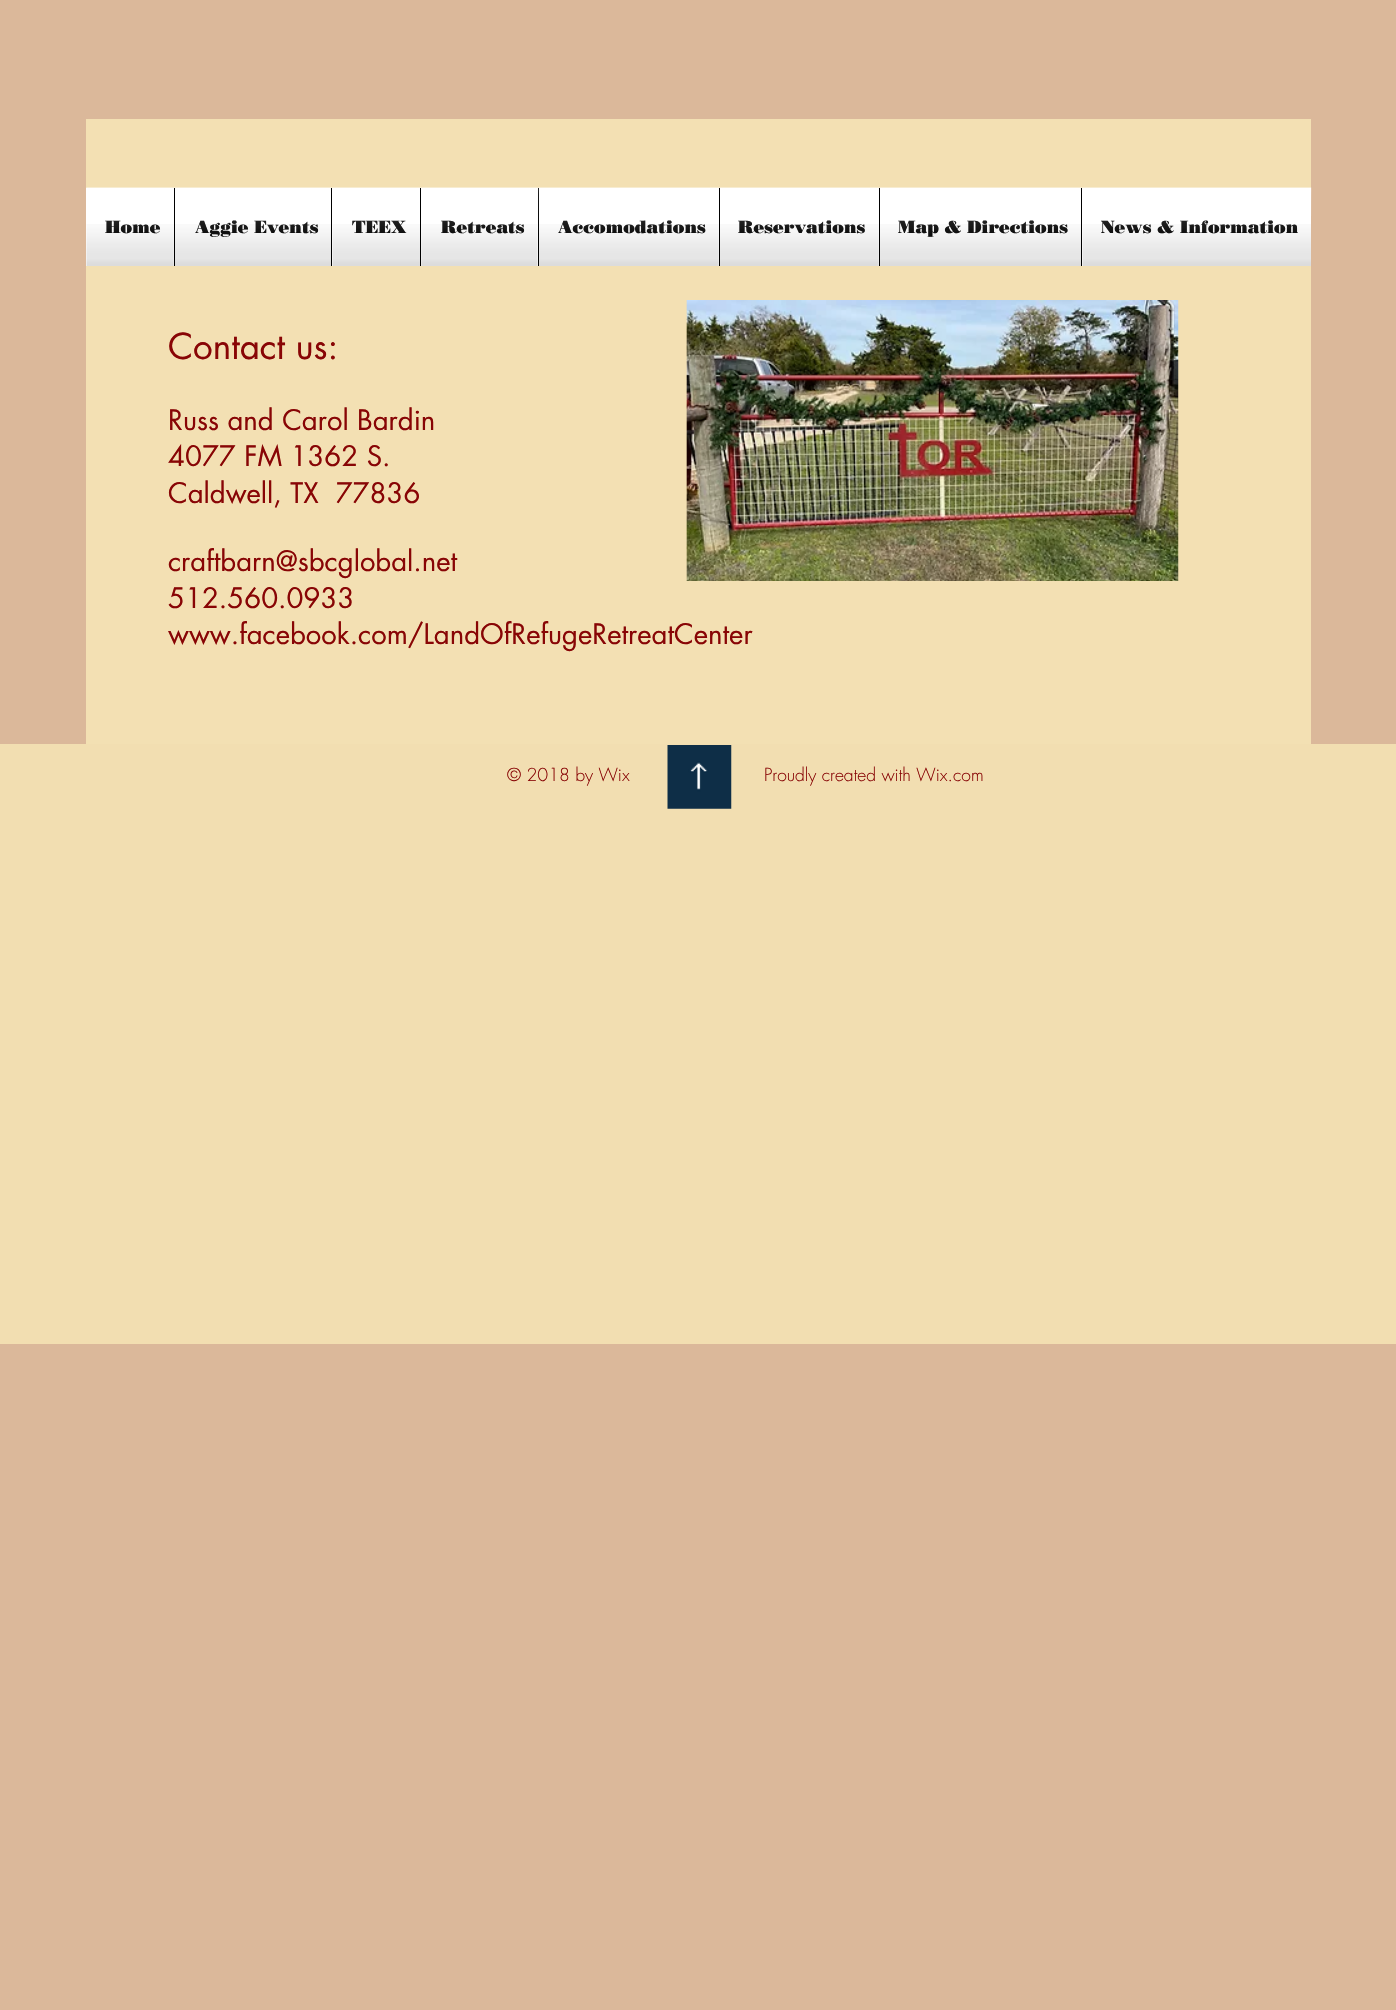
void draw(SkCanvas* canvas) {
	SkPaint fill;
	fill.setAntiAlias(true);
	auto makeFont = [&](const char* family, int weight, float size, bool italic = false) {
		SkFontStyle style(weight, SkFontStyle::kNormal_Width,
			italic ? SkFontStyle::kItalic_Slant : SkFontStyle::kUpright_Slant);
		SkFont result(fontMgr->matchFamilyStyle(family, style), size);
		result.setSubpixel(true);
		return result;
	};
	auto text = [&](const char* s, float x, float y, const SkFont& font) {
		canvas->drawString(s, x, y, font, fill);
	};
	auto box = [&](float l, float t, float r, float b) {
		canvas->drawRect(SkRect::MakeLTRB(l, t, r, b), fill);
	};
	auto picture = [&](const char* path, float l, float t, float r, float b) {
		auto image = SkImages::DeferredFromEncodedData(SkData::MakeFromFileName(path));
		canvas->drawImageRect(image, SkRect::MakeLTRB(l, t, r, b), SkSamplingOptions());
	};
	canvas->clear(0xFFDBB89A);
	fill.setColor(0xFFF3E0B3);
	box(86, 119, 1311, 744);
	picture("image0.png", 86, 187, 1312, 216);
	fill.setColor(0xFFFFFFFF);
	box(86, 188, 174, 266);
	box(175, 188, 331, 266);
	fill.setColor(0xFF000000);
	box(174, 188, 175, 266);
	fill.setColor(0xFFFFFFFF);
	box(332, 188, 420, 266);
	fill.setColor(0xFF000000);
	box(331, 188, 332, 266);
	fill.setColor(0xFFFFFFFF);
	box(421, 188, 538, 266);
	fill.setColor(0xFF000000);
	box(420, 188, 421, 266);
	fill.setColor(0xFFFFFFFF);
	box(539, 188, 719, 266);
	fill.setColor(0xFF000000);
	box(538, 188, 539, 266);
	fill.setColor(0xFFFFFFFF);
	box(720, 188, 879, 266);
	fill.setColor(0xFF000000);
	box(719, 188, 720, 266);
	fill.setColor(0xFFFFFFFF);
	box(880, 188, 1081, 266);
	fill.setColor(0xFF000000);
	box(879, 188, 880, 266);
	fill.setColor(0xFFFFFFFF);
	box(1082, 188, 1311, 266);
	fill.setColor(0xFF000000);
	box(1081, 188, 1082, 266);
	picture("image17.png", 686, 300, 1179, 581);
	fill.setColor(0xFFF2DEB1);
	box(0, 744, 1396, 1344);
	picture("image18.png", 667, 745, 732, 809);
	auto font1 = makeFont("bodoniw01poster", 900, 17.5f);
	fill.setColor(0xFF000000);
	text("Home", 105, 233, font1);
	picture("image1.png", 86, 187, 174, 233);
	picture("image2.png", 86, 224, 174, 266);
	text("Aggie Events", 195, 233, font1);
	picture("image3.png", 175, 187, 331, 237);
	picture("image4.png", 175, 224, 331, 266);
	text("TEEX", 352, 233, font1);
	picture("image5.png", 333, 187, 420, 233);
	picture("image6.png", 332, 224, 420, 266);
	text("Retreats", 441, 233, font1);
	picture("image7.png", 421, 187, 537, 233);
	picture("image8.png", 421, 224, 538, 266);
	text("Accomodations", 558, 233, font1);
	picture("image9.png", 538, 187, 719, 233);
	picture("image10.png", 539, 224, 719, 266);
	text("Reservations", 738, 233, font1);
	picture("image11.png", 720, 187, 879, 233);
	picture("image12.png", 720, 224, 879, 266);
	text("Map & Directions", 898, 233, font1);
	picture("image13.png", 880, 187, 1081, 237);
	picture("image14.png", 880, 224, 1081, 266);
	text("News & Information", 1101, 233, font1);
	picture("image15.png", 1083, 187, 1311, 233);
	picture("image16.png", 1082, 224, 1311, 266);
	auto font2 = makeFont("futura", 400, 35);
	fill.setColor(0xFF880505);
	text("Contact us:", 168, 359, font2);
	auto font3 = makeFont("futura", 400, 27.5f);
	text("Russ and Carol Bardin", 168, 430, font3);
	text("4077 FM 1362 S.", 168, 466, font3);
	text("Caldwell, TX  77836", 168, 503, font3);
	text("craftbarn@sbcglobal.net", 168, 571, font3);
	text("512.560.0933", 168, 608, font3);
	text("www.facebook.com/LandOfRefugeRetreatCenter", 168, 644, font3);
	auto font4 = makeFont("futura", 300, 17.5f);
	text("© 2018 by Wix", 507, 781, font4);
	text("Proudly created with Wix.com", 764, 781, font4);
}
